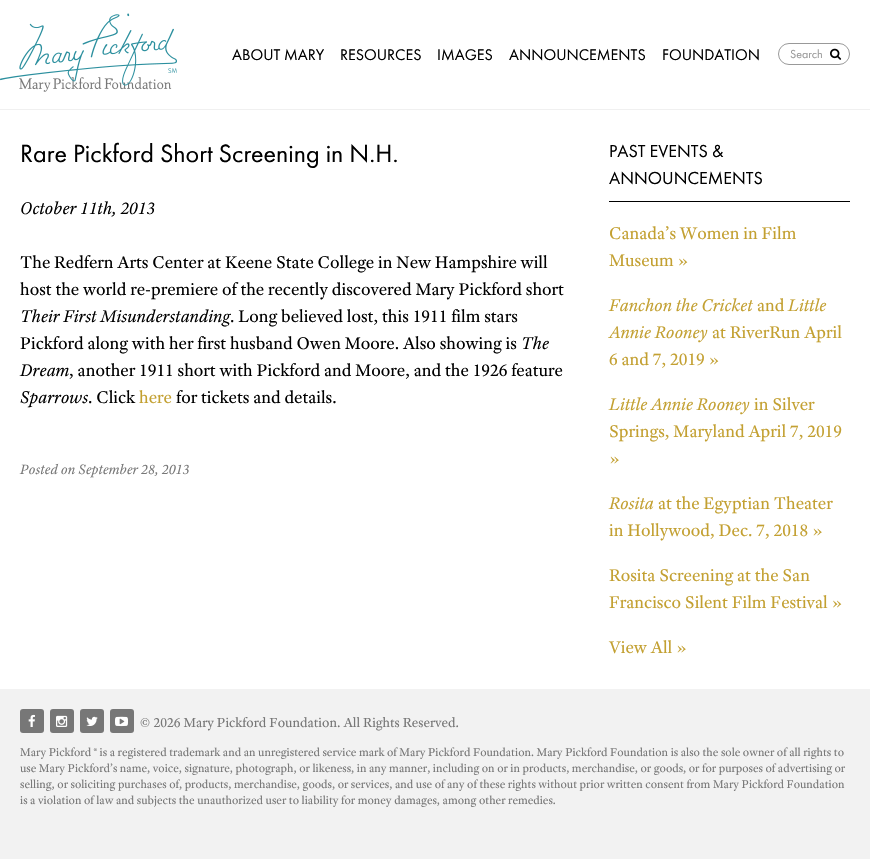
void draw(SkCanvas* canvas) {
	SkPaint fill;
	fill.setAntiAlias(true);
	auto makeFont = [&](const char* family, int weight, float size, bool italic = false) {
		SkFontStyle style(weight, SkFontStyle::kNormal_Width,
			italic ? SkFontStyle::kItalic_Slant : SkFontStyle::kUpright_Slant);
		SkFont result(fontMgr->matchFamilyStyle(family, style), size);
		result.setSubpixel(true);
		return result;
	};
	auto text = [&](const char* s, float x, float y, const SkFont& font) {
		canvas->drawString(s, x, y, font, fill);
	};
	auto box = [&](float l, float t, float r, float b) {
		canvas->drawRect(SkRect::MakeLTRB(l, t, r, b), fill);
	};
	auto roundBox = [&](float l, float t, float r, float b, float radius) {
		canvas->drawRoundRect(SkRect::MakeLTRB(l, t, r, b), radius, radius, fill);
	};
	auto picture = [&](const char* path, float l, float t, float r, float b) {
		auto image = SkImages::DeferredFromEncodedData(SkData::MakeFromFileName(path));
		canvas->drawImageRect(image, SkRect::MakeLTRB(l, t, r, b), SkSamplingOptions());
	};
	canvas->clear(0xFFFFFFFF);
	fill.setColor(0xFFF0F0F0);
	box(0, 109, 870, 110);
	picture("image1.png", 19, 77, 172, 92);
	picture("image0.png", 0, 13, 177, 86);
	fill.setStyle(SkPaint::kStroke_Style);
	fill.setStrokeWidth(1);
	fill.setColor(0xFF999999);
	canvas->drawRoundRect(SkRect::MakeLTRB(778.5f, 43.5f, 849.5f, 64.5f), 10.5f, 10.5f, fill);
	picture("image2.png", 830, 48, 842, 60);
	fill.setStyle(SkPaint::kFill_Style);
	fill.setColor(0xFF000000);
	box(609, 201, 850, 202);
	fill.setColor(0xFFF2F2F2);
	box(0, 689, 870, 859);
	fill.setColor(0xFF777777);
	roundBox(20, 709, 44, 733, 3);
	picture("image3.png", 28, 714, 35, 727);
	roundBox(50, 709, 74, 733, 3);
	picture("image4.png", 56, 715, 68, 727);
	roundBox(80, 709, 104, 733, 3);
	picture("image5.png", 86, 716, 98, 726);
	roundBox(110, 709, 134, 733, 3);
	picture("image6.png", 115, 716, 128, 727);
	auto font1 = makeFont("Futura PT", 400, 16);
	fill.setColor(0xFF000000);
	text("ABOUT MARY", 232, 60, font1);
	text("RESOURCES", 340, 60, font1);
	text("IMAGES", 437, 60, font1);
	text("ANNOUNCEMENTS", 509, 60, font1);
	text("FOUNDATION", 662, 60, font1);
	auto font2 = makeFont("Futura PT", 400, 12);
	fill.setColor(0xFF999999);
	text("Search", 790, 58, font2);
	auto font3 = makeFont("Futura PT", 400, 26);
	fill.setColor(0xFF000000);
	text("Rare Pickford Short Screening in N.H.", 20, 162, font3);
	auto font4 = makeFont("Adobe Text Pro", 400, 18, true);
	text("October 11th, 2013", 20, 214, font4);
	auto font5 = makeFont("Adobe Text Pro", 400, 18);
	text("The Redfern Arts Center at Keene State College in New Hampshire will", 20, 268, font5);
	text("host the world re-premiere of the recently discovered Mary Pickford short", 20, 295, font5);
	text("Their First Misunderstanding", 20, 322, font4);
	text(". Long believed lost, this 1911 film stars", 230, 322, font5);
	text("Pickford along with her first husband Owen Moore. Also showing is", 20, 349, font5);
	text("The", 521, 349, font4);
	text("Dream", 20, 376, font4);
	text(", another 1911 short with Pickford and Moore, and the 1926 feature", 69, 376, font5);
	text("Sparrows", 20, 403, font4);
	text(". Click", 88, 403, font5);
	fill.setColor(0xFFC3A031);
	text("here", 139, 403, font5);
	fill.setColor(0xFF000000);
	text("for tickets and details.", 176, 403, font5);
	auto font6 = makeFont("Adobe Text Pro", 400, 14.4f, true);
	fill.setColor(0xFF777777);
	text("Posted on September 28, 2013", 20, 474, font6);
	auto font7 = makeFont("Futura PT", 400, 18);
	fill.setColor(0xFF000000);
	text("PAST EVENTS &", 609, 157, font7);
	text("ANNOUNCEMENTS", 609, 184, font7);
	fill.setColor(0xFFC3A031);
	text("Canada’s Women in Film", 609, 239, font5);
	text("Museum »", 609, 266, font5);
	text("Fanchon the Cricket", 609, 311, font4);
	text("and", 757, 311, font5);
	text("Little", 788, 311, font4);
	text("Annie Rooney", 609, 338, font4);
	text("at RiverRun April", 712, 338, font5);
	text("6 and 7, 2019 »", 609, 365, font5);
	text("Little Annie Rooney", 609, 410, font4);
	text("in Silver", 754, 410, font5);
	text("Springs, Maryland April 7, 2019", 609, 437, font5);
	text("»", 609, 464, font5);
	text("Rosita", 609, 509, font4);
	text("at the Egyptian Theater", 658, 509, font5);
	text("in Hollywood, Dec. 7, 2018 »", 609, 536, font5);
	text("Rosita Screening at the San", 609, 581, font5);
	text("Francisco Silent Film Festival »", 609, 608, font5);
	text("View All »", 609, 653, font5);
	auto font8 = makeFont("Adobe Text Pro", 400, 14);
	fill.setColor(0xFF777777);
	text("© 2026 Mary Pickford Foundation. All Rights Reserved.", 140, 727, font8);
	auto font9 = makeFont("Adobe Text Pro", 400, 12);
	text("Mary Pickford ® is a registered trademark and an unregistered service mark of Mary Pickford Foundation. Mary Pickford Foundation is also the sole owner of all rights to", 20, 756, font9);
	text("use Mary Pickford’s name, voice, signature, photograph, or likeness, in any manner, including on or in products, merchandise, or goods, or for purposes of advertising or", 20, 772, font9);
	text("selling, or soliciting purchases of, products, merchandise, goods, or services, and use of any of these rights without prior written consent from Mary Pickford Foundation", 20, 788, font9);
	text("is a violation of law and subjects the unauthorized user to liability for money damages, among other remedies.", 20, 804, font9);
}
